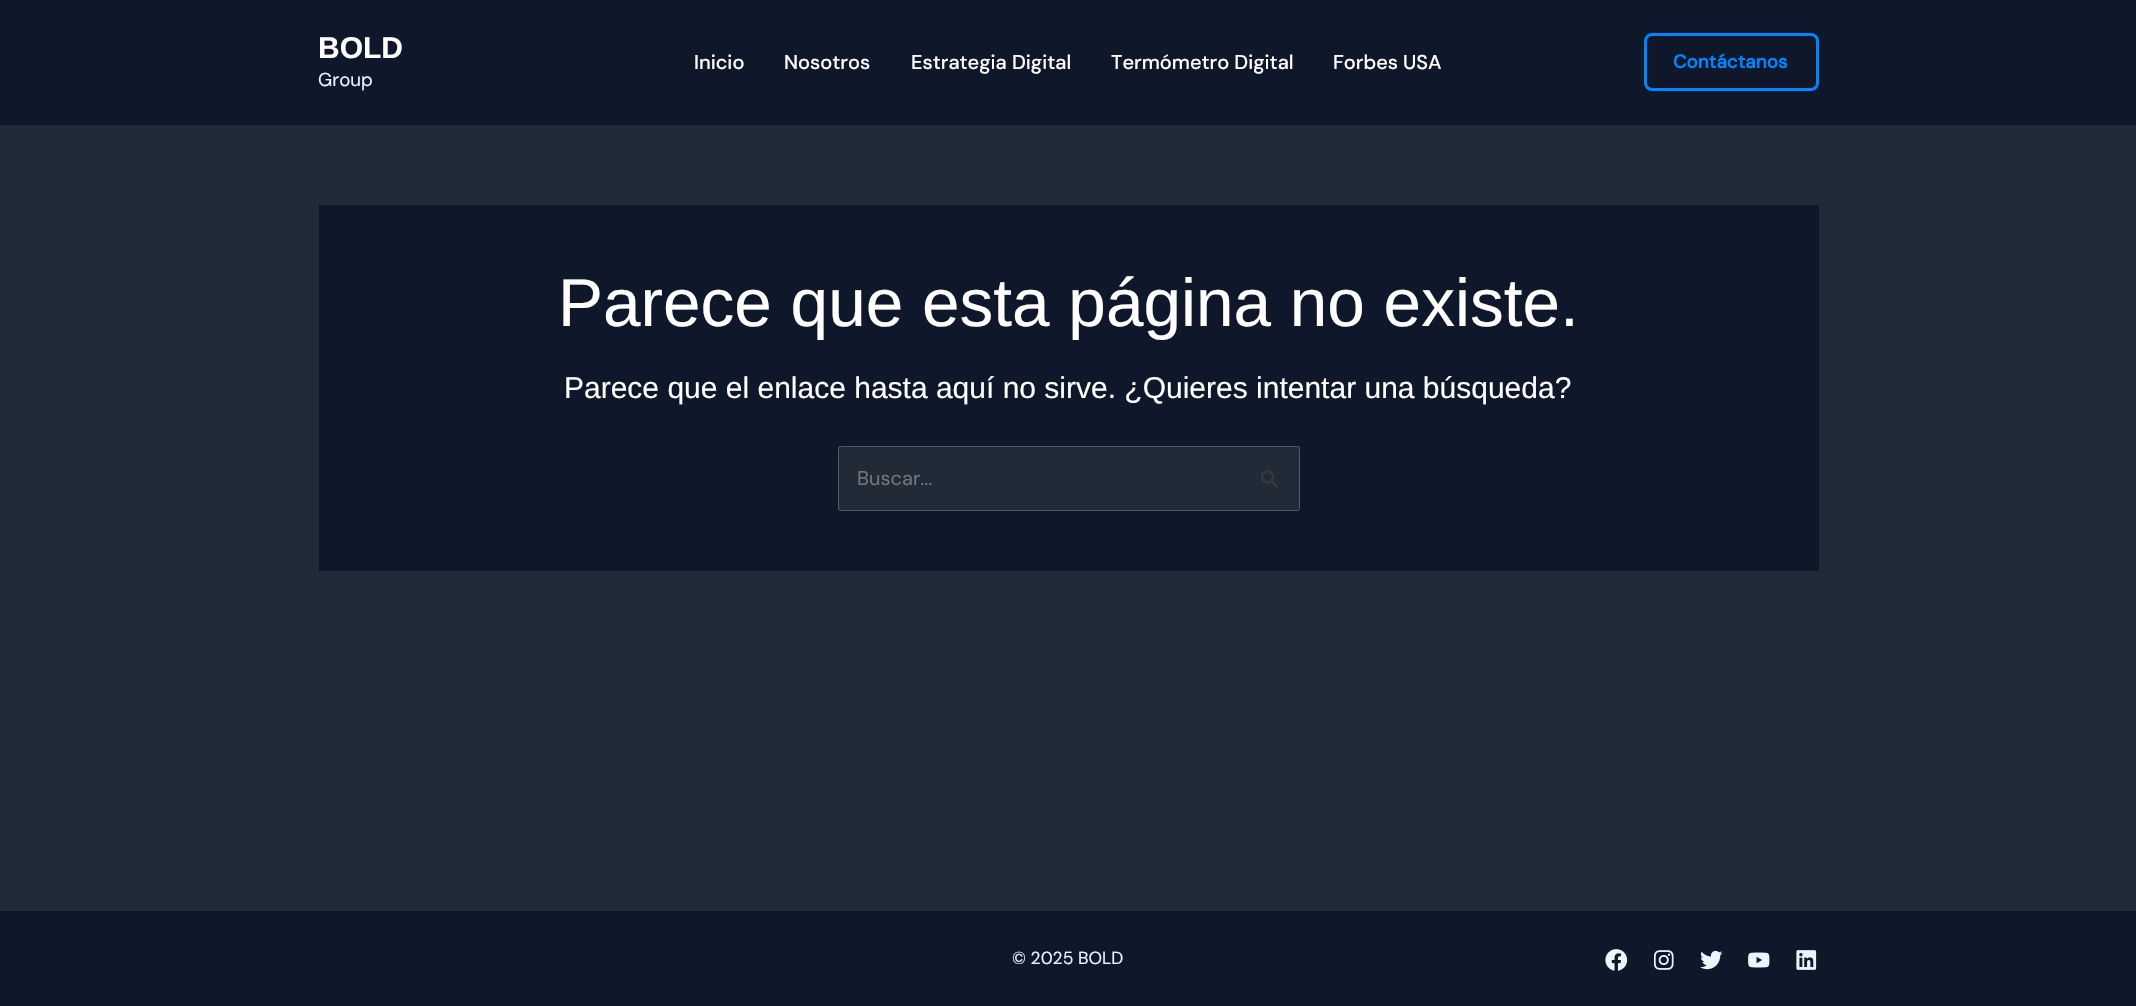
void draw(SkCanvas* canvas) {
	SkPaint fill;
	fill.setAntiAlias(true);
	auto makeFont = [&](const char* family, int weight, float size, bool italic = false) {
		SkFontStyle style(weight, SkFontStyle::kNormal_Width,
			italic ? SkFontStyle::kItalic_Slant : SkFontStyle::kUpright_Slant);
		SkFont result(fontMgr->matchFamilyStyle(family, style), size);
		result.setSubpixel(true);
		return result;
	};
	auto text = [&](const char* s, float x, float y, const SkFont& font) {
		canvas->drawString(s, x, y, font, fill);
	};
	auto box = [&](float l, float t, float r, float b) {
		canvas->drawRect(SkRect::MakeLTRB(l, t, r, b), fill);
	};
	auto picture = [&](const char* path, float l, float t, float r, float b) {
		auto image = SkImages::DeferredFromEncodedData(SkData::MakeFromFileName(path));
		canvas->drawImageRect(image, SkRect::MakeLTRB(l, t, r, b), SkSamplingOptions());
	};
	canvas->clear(0xFF212A37);
	fill.setColor(0xFF0F172A);
	box(0, 0, 2136, 125);
	fill.setStyle(SkPaint::kStroke_Style);
	fill.setStrokeWidth(3);
	fill.setColor(0xFF0085FF);
	canvas->drawRoundRect(SkRect::MakeLTRB(1645.5f, 34.5f, 1817.5f, 89.5f), 6.5f, 6.5f, fill);
	fill.setStyle(SkPaint::kFill_Style);
	fill.setColor(0xFF0F172A);
	box(319, 205, 1819, 571);
	fill.setColor(0xFF212A37);
	canvas->drawRoundRect(SkRect::MakeLTRB(838.5f, 446.5f, 1299.5f, 510.5f), 2, 2, fill);
	fill.setStyle(SkPaint::kStroke_Style);
	fill.setStrokeWidth(1);
	fill.setColor(0xFF4F5B62);
	canvas->drawRoundRect(SkRect::MakeLTRB(838.5f, 446.5f, 1299.5f, 510.5f), 2, 2, fill);
	picture("image0.png", 1261, 470, 1278, 488);
	fill.setStyle(SkPaint::kFill_Style);
	fill.setColor(0xFF0F172A);
	box(0, 911, 2136, 1006);
	picture("image1.png", 1605, 949, 1628, 971);
	picture("image2.png", 1653, 950, 1674, 970);
	picture("image3.png", 1700, 950, 1723, 970);
	picture("image4.png", 1748, 952, 1770, 968);
	picture("image5.png", 1796, 950, 1817, 970);
	auto font1 = makeFont("Liberation Sans", 700, 30);
	fill.setColor(0xFFFFFFFF);
	text("BOLD", 318, 58, font1);
	auto font2 = makeFont("DM Sans", 400, 18.75f);
	fill.setColor(0xFFE7F6FF);
	text("Group", 318, 86, font2);
	auto font3 = makeFont("DM Sans", 500, 20);
	fill.setColor(0xFFFFFFFF);
	text("Inicio", 694, 69, font3);
	text("Nosotros", 784, 69, font3);
	text("Estrategia Digital", 911, 69, font3);
	text("Termómetro Digital", 1111, 69, font3);
	text("Forbes USA", 1333, 69, font3);
	auto font4 = makeFont("DM Sans", 700, 18.75f);
	fill.setColor(0xFF0085FF);
	text("Contáctanos", 1673, 68, font4);
	auto font5 = makeFont("Liberation Sans", 400, 67.5f);
	fill.setColor(0xFFFFFFFF);
	text("Parece que esta página no existe.", 558, 326, font5);
	auto font6 = makeFont("Liberation Sans", 400, 30);
	text("Parece que el enlace hasta aquí no sirve. ¿Quieres intentar una búsqueda?", 564, 398, font6);
	auto font7 = makeFont("DM Sans", 400, 20);
	fill.setColor(0xFF757575);
	text("Buscar...", 857, 485, font7);
	auto font8 = makeFont("DM Sans", 400, 17.5f);
	fill.setColor(0xFFE7F6FF);
	text("© 2025 BOLD", 1012, 964, font8);
}
